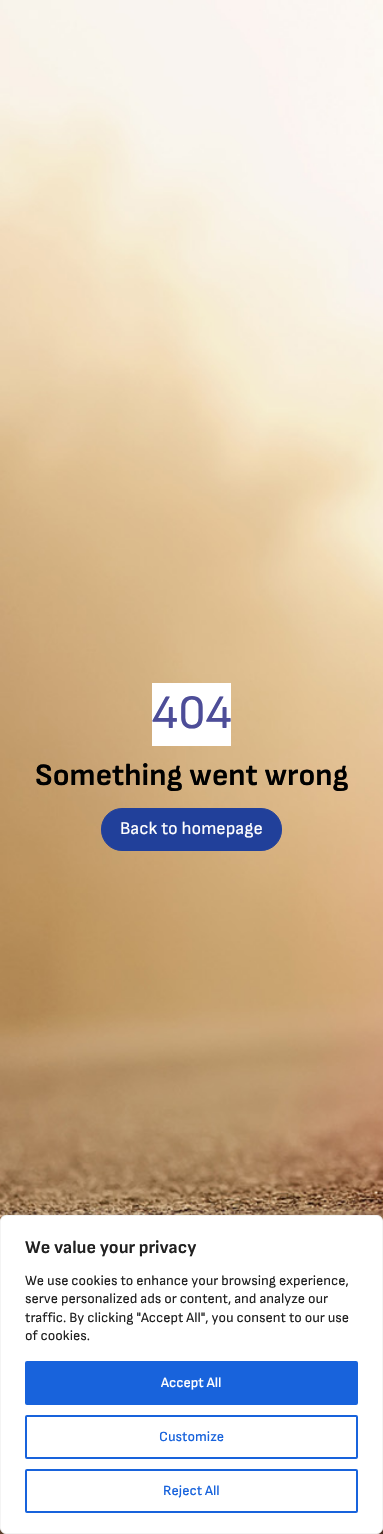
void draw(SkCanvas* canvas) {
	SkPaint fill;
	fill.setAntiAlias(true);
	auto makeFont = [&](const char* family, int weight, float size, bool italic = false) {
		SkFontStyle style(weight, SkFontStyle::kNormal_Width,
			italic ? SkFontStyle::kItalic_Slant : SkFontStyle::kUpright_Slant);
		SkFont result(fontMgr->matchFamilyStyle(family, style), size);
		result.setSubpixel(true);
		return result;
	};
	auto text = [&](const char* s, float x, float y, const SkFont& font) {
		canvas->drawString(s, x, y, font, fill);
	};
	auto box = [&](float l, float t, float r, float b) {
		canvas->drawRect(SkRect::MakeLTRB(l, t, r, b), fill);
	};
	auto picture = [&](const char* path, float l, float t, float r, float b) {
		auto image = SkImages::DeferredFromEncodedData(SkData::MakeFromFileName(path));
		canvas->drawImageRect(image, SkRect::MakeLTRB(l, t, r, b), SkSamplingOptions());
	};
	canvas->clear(0xFFFFFFFF);
	picture("image0.png", 0, 0, 383, 1534);
	fill.setColor(0xFFFFFFFF);
	box(152, 683, 231, 746);
	fill.setColor(0xFF21409A);
	canvas->drawRoundRect(SkRect::MakeLTRB(101.5f, 808.5f, 281.5f, 850.5f), 20.5f, 20.5f, fill);
	fill.setStyle(SkPaint::kStroke_Style);
	fill.setStrokeWidth(1);
	canvas->drawRoundRect(SkRect::MakeLTRB(101.5f, 808.5f, 281.5f, 850.5f), 20.5f, 20.5f, fill);
	fill.setStyle(SkPaint::kFill_Style);
	fill.setColor(0x4DACABAB);
	fill.setMaskFilter(SkMaskFilter::MakeBlur(kNormal_SkBlurStyle, 5));
	canvas->drawRoundRect(SkRect::MakeLTRB(0, 1214, 383, 1533), 6, 6, fill);
	fill.setMaskFilter(nullptr);
	fill.setColor(0xFFFFFFFF);
	canvas->drawRoundRect(SkRect::MakeLTRB(0.5f, 1215.5f, 382.5f, 1533.5f), 5.5f, 5.5f, fill);
	fill.setStyle(SkPaint::kStroke_Style);
	fill.setColor(0xFFF4F4F4);
	canvas->drawRoundRect(SkRect::MakeLTRB(0.5f, 1215.5f, 382.5f, 1533.5f), 5.5f, 5.5f, fill);
	fill.setStyle(SkPaint::kFill_Style);
	fill.setColor(0xFF1863DC);
	canvas->drawRoundRect(SkRect::MakeLTRB(26, 1362, 357, 1404), 1, 1, fill);
	fill.setStyle(SkPaint::kStroke_Style);
	fill.setStrokeWidth(2);
	canvas->drawRoundRect(SkRect::MakeLTRB(26, 1362, 357, 1404), 1, 1, fill);
	canvas->drawRoundRect(SkRect::MakeLTRB(26, 1416, 357, 1458), 1, 1, fill);
	canvas->drawRoundRect(SkRect::MakeLTRB(26, 1470, 357, 1512), 1, 1, fill);
	auto font1 = makeFont("Sofia Sans", 400, 48);
	fill.setStyle(SkPaint::kFill_Style);
	fill.setColor(0xFF4D4D98);
	text("404", 152, 728, font1);
	auto font2 = makeFont("Sofia Sans", 700, 31);
	fill.setColor(0xFF000000);
	text("Something went wrong", 35, 785, font2);
	auto font3 = makeFont("Sofia Sans", 400, 18);
	fill.setColor(0xFFFFFFFF);
	text("Back to homepage", 120, 834, font3);
	auto font4 = makeFont("Sofia Sans", 700, 18);
	fill.setColor(0xFF212121);
	text("We value your privacy", 25, 1253, font4);
	auto font5 = makeFont("Sofia Sans", 400, 14);
	text("We use cookies to enhance your browsing experience,", 25, 1285, font5);
	text("serve personalized ads or content, and analyze our", 25, 1303, font5);
	text("traffic. By clicking \"Accept All\", you consent to our use", 25, 1322, font5);
	text("of cookies.", 25, 1340, font5);
	auto font6 = makeFont("Sofia Sans", 500, 14);
	fill.setColor(0xFFFFFFFF);
	text("Accept All", 161, 1387, font6);
	fill.setColor(0xFF1863DC);
	text("Customize", 159, 1441, font6);
	text("Reject All", 163, 1495, font6);
}
